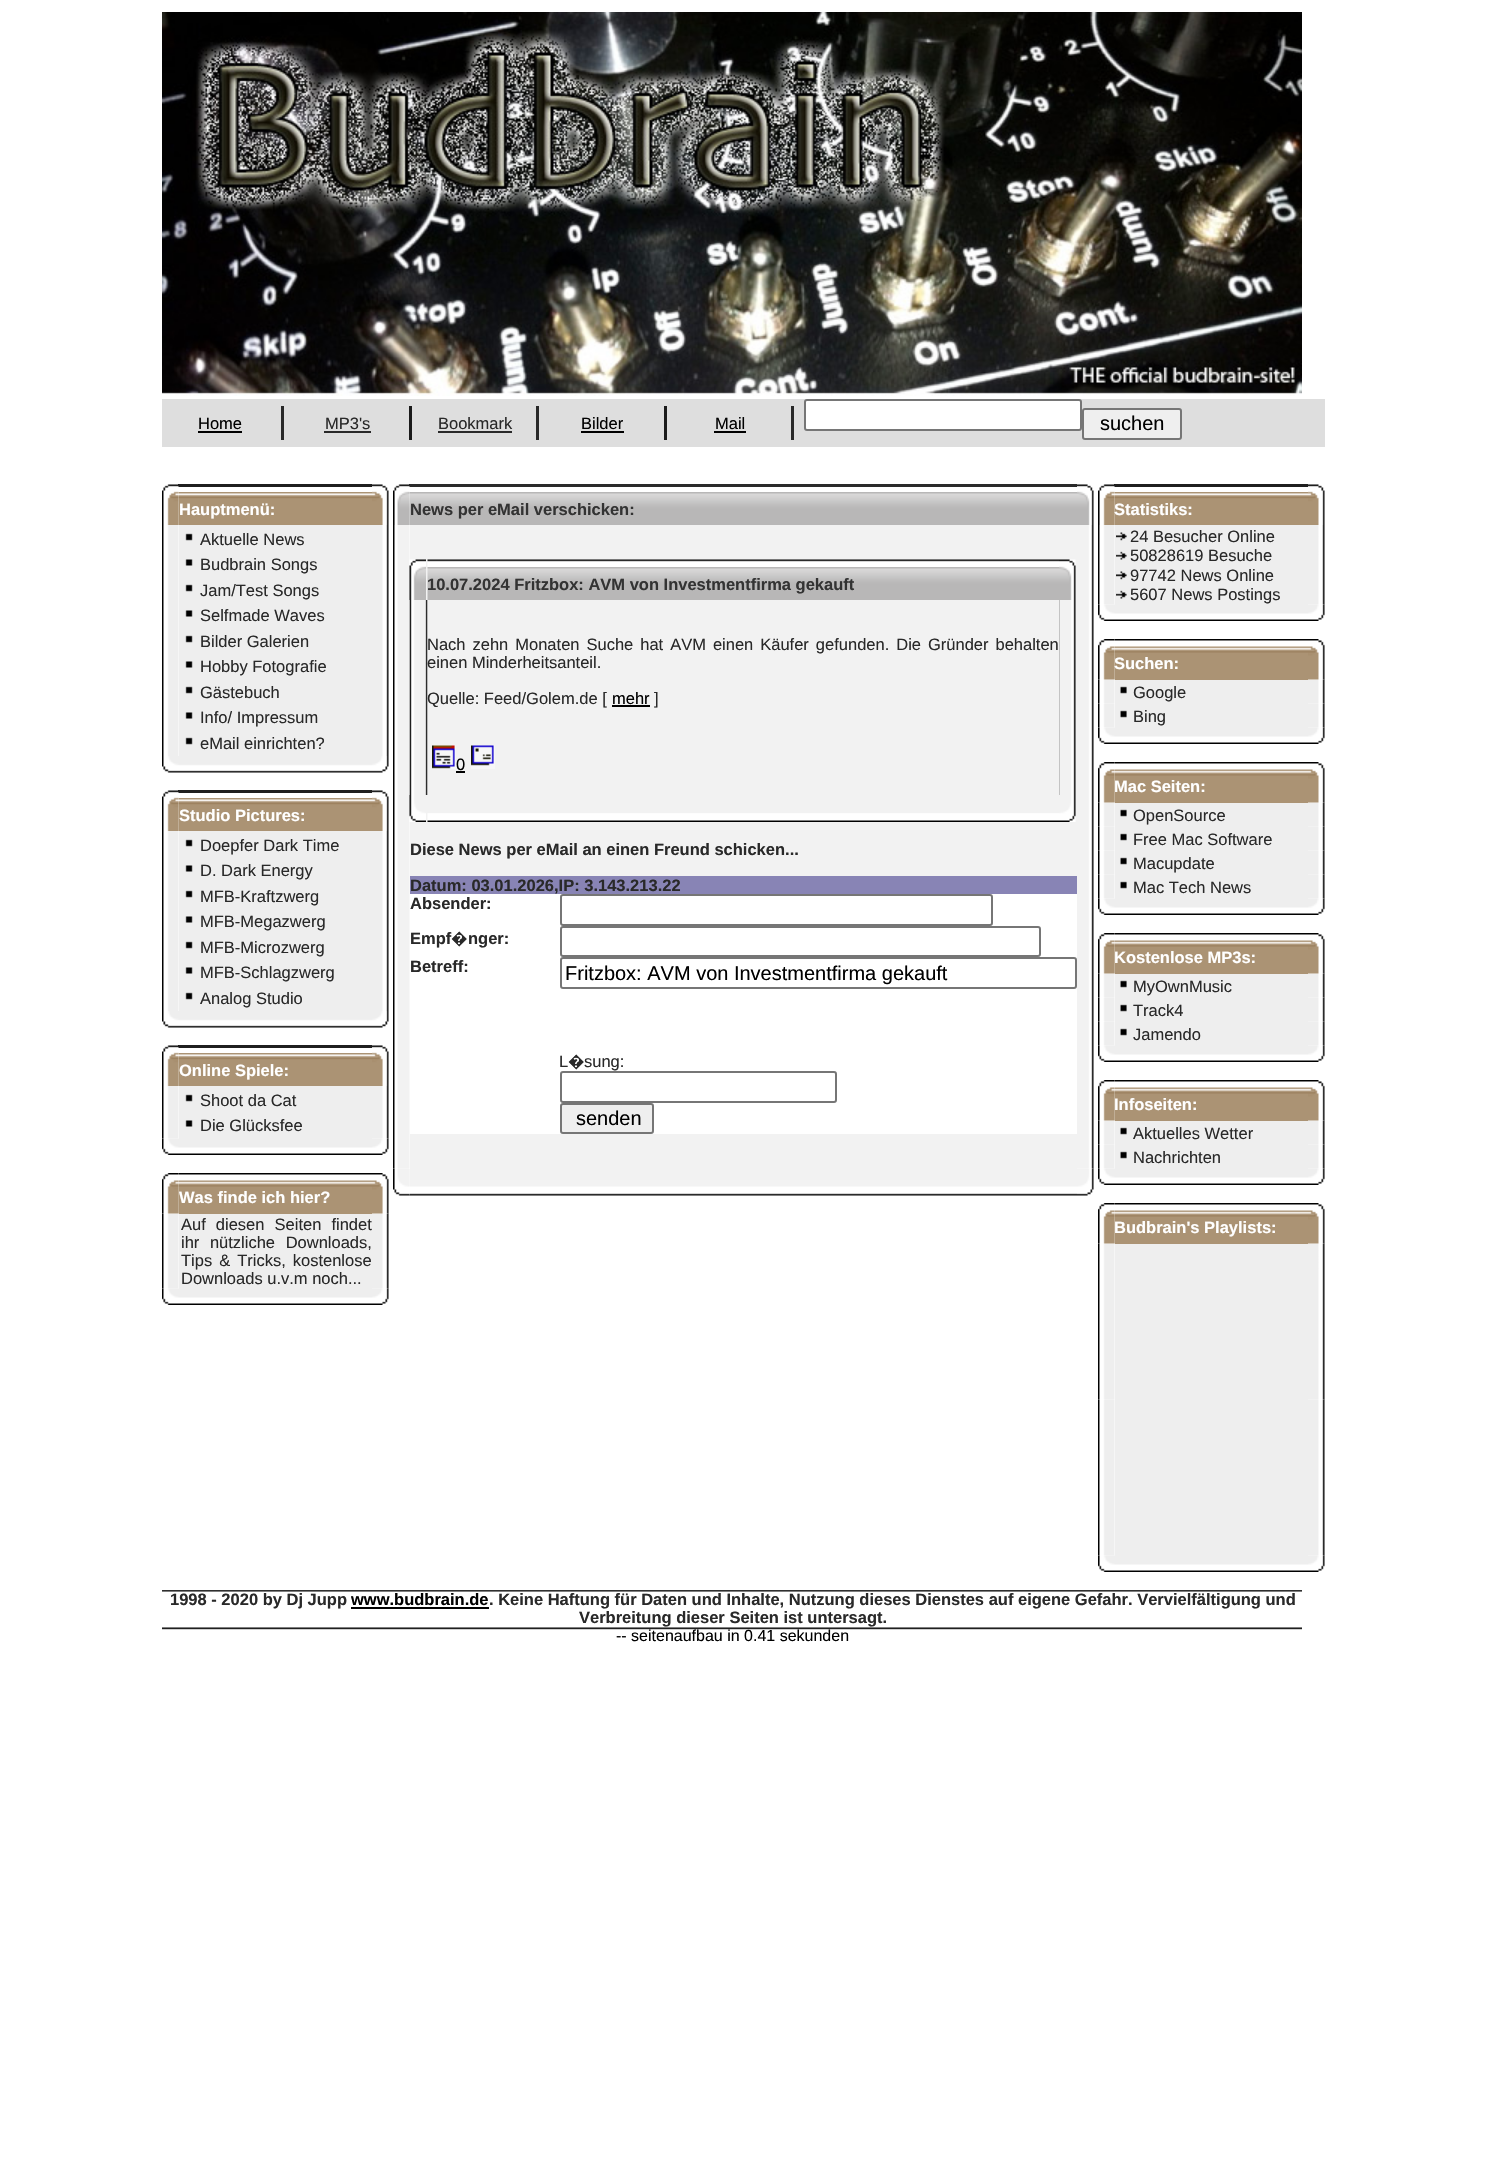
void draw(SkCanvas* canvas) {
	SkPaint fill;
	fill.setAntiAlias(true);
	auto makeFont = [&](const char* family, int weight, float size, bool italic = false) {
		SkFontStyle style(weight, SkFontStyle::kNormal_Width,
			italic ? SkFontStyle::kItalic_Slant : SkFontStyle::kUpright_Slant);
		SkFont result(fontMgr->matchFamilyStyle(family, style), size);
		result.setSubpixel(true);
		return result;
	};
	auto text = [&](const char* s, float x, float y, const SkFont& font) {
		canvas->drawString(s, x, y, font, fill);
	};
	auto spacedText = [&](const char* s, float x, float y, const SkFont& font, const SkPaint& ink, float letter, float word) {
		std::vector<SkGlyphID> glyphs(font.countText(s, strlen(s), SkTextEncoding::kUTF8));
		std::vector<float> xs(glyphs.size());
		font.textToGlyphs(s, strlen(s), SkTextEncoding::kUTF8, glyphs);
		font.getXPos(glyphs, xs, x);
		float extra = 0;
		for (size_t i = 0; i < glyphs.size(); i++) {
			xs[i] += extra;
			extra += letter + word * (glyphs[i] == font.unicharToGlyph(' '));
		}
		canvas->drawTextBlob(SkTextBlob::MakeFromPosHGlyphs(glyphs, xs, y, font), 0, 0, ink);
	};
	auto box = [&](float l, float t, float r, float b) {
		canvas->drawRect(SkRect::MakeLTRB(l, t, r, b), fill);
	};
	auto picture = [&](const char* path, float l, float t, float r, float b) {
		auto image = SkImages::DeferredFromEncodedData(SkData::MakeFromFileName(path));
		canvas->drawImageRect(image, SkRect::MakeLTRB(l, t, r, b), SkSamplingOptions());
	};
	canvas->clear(0xFFFFFFFF);
	picture("image0.png", 162, 12, 1302, 396);
	fill.setColor(0xFFDEDEDE);
	box(162, 399, 1325, 447);
	fill.setColor(0xFF000000);
	box(198, 431, 242, 433);
	fill.setColor(0xFF292929);
	box(281, 406, 284, 440);
	box(324, 431, 371, 433);
	fill.setColor(0xFF1B1B1B);
	box(409, 406, 412, 440);
	fill.setColor(0xFF292929);
	box(438, 431, 512, 433);
	box(536, 406, 539, 440);
	fill.setColor(0xFF000000);
	box(581, 431, 624, 433);
	fill.setColor(0xFF1B1B1B);
	box(664, 406, 667, 440);
	fill.setColor(0xFF000000);
	box(714, 431, 746, 433);
	fill.setColor(0xFF292929);
	box(791, 406, 794, 440);
	fill.setColor(0xFFFFFFFF);
	canvas->drawRoundRect(SkRect::MakeLTRB(805, 400, 1081, 430), 2, 2, fill);
	fill.setStyle(SkPaint::kStroke_Style);
	fill.setStrokeWidth(2);
	fill.setColor(0xFF767676);
	canvas->drawRoundRect(SkRect::MakeLTRB(805, 400, 1081, 430), 2, 2, fill);
	fill.setStyle(SkPaint::kFill_Style);
	fill.setColor(0xFFEFEFEF);
	canvas->drawRoundRect(SkRect::MakeLTRB(1083, 409, 1181, 439), 2, 2, fill);
	fill.setStyle(SkPaint::kStroke_Style);
	fill.setColor(0xFF767676);
	canvas->drawRoundRect(SkRect::MakeLTRB(1083, 409, 1181, 439), 2, 2, fill);
	fill.setStyle(SkPaint::kFill_Style);
	fill.setColor(0xFF1F1F1F);
	box(178, 484, 372, 487);
	picture("image3.png", 178, 492, 372, 525);
	picture("image1.png", 162, 484, 179, 525);
	picture("image2.png", 372, 484, 389, 525);
	picture("image4.png", 162, 525, 179, 756);
	fill.setColor(0xFFEEEEEE);
	box(179, 525, 372, 756);
	picture("image5.png", 185, 533, 193, 541);
	picture("image6.png", 185, 559, 193, 566);
	picture("image5.png", 185, 584, 193, 592);
	picture("image6.png", 185, 610, 193, 617);
	picture("image5.png", 185, 635, 193, 643);
	picture("image6.png", 185, 661, 193, 668);
	picture("image5.png", 185, 686, 193, 694);
	picture("image6.png", 185, 712, 193, 719);
	picture("image5.png", 185, 737, 193, 745);
	picture("image7.png", 372, 525, 389, 756);
	picture("image8.png", 162, 756, 389, 773);
	fill.setColor(0xFF1F1F1F);
	box(178, 790, 372, 793);
	picture("image3.png", 178, 798, 372, 831);
	picture("image1.png", 162, 790, 179, 831);
	picture("image2.png", 372, 790, 389, 831);
	picture("image9.png", 162, 831, 179, 1011);
	fill.setColor(0xFFEEEEEE);
	box(179, 831, 372, 1011);
	picture("image5.png", 185, 839, 193, 847);
	picture("image6.png", 185, 865, 193, 872);
	picture("image5.png", 185, 890, 193, 898);
	picture("image6.png", 185, 916, 193, 923);
	picture("image5.png", 185, 941, 193, 949);
	picture("image6.png", 185, 967, 193, 974);
	picture("image5.png", 185, 992, 193, 1000);
	picture("image10.png", 372, 831, 389, 1011);
	picture("image8.png", 162, 1011, 389, 1028);
	fill.setColor(0xFF1F1F1F);
	box(178, 1045, 372, 1048);
	picture("image3.png", 178, 1053, 372, 1086);
	picture("image1.png", 162, 1045, 179, 1086);
	picture("image2.png", 372, 1045, 389, 1086);
	picture("image11.png", 162, 1086, 179, 1139);
	fill.setColor(0xFFEEEEEE);
	box(179, 1086, 372, 1139);
	picture("image5.png", 185, 1094, 193, 1102);
	picture("image6.png", 185, 1120, 193, 1127);
	picture("image12.png", 372, 1086, 389, 1139);
	picture("image13.png", 162, 1138, 389, 1155);
	picture("image15.png", 178, 1173, 372, 1175);
	fill.setColor(0xFFAB9374);
	box(179, 1213, 372, 1214);
	picture("image17.png", 178, 1180, 372, 1214);
	picture("image18.png", 162, 1213, 179, 1289);
	picture("image14.png", 162, 1173, 179, 1214);
	picture("image19.png", 372, 1213, 389, 1289);
	picture("image16.png", 372, 1173, 389, 1214);
	fill.setColor(0xFFEEEEEE);
	box(179, 1214, 372, 1289);
	picture("image13.png", 162, 1288, 389, 1305);
	fill.setColor(0xFF2A2A2A);
	box(409, 484, 1077, 487);
	picture("image22.png", 409, 492, 1077, 525);
	picture("image20.png", 393, 484, 410, 525);
	picture("image21.png", 1077, 484, 1094, 525);
	picture("image23.png", 393, 525, 410, 1169);
	fill.setColor(0xFFF2F2F2);
	box(410, 525, 1077, 1169);
	picture("image24.png", 409, 559, 426, 600);
	picture("image25.png", 427, 559, 1059, 567);
	picture("image26.png", 1059, 559, 1076, 600);
	picture("image27.png", 427, 567, 1059, 600);
	picture("image28.png", 409, 600, 428, 795);
	fill.setColor(0xFF000000);
	box(612, 705, 650, 707);
	picture("image29.png", 432, 745, 456, 769);
	box(456, 771, 465, 773);
	picture("image30.png", 471, 745, 495, 769);
	picture("image31.png", 1059, 600, 1076, 795);
	picture("image32.png", 409, 795, 426, 822);
	picture("image33.png", 427, 813, 1059, 822);
	picture("image34.png", 1059, 795, 1076, 822);
	fill.setColor(0xFF8884B5);
	box(410, 876, 1077, 894);
	fill.setColor(0xFFFFFFFF);
	box(410, 894, 1077, 926);
	fill.setStyle(SkPaint::kStroke_Style);
	fill.setColor(0xFF767676);
	canvas->drawRoundRect(SkRect::MakeLTRB(561, 895, 992, 925), 2, 2, fill);
	fill.setStyle(SkPaint::kFill_Style);
	fill.setColor(0xFFFFFFFF);
	box(410, 926, 1077, 957);
	fill.setStyle(SkPaint::kStroke_Style);
	fill.setColor(0xFF767676);
	canvas->drawRoundRect(SkRect::MakeLTRB(561, 927, 1040, 956), 2, 2, fill);
	fill.setStyle(SkPaint::kFill_Style);
	fill.setColor(0xFFFFFFFF);
	box(410, 957, 1077, 989);
	fill.setStyle(SkPaint::kStroke_Style);
	fill.setColor(0xFF767676);
	canvas->drawRoundRect(SkRect::MakeLTRB(561, 958, 1076, 988), 2, 2, fill);
	fill.setStyle(SkPaint::kFill_Style);
	fill.setColor(0xFFFFFFFF);
	box(410, 989, 1077, 1103);
	fill.setStyle(SkPaint::kStroke_Style);
	fill.setColor(0xFF767676);
	canvas->drawRoundRect(SkRect::MakeLTRB(561, 1072, 836, 1102), 2, 2, fill);
	fill.setStyle(SkPaint::kFill_Style);
	fill.setColor(0xFFFFFFFF);
	box(410, 1103, 1077, 1134);
	fill.setColor(0xFFEFEFEF);
	canvas->drawRoundRect(SkRect::MakeLTRB(561, 1104, 653, 1133), 2, 2, fill);
	fill.setStyle(SkPaint::kStroke_Style);
	fill.setColor(0xFF767676);
	canvas->drawRoundRect(SkRect::MakeLTRB(561, 1104, 653, 1133), 2, 2, fill);
	picture("image35.png", 1077, 525, 1094, 1169);
	picture("image37.png", 409, 1169, 1077, 1196);
	picture("image36.png", 393, 1168, 410, 1196);
	picture("image38.png", 1077, 1168, 1094, 1196);
	fill.setStyle(SkPaint::kFill_Style);
	fill.setColor(0xFF1F1F1F);
	box(1114, 484, 1308, 487);
	picture("image3.png", 1114, 492, 1308, 525);
	picture("image39.png", 1098, 484, 1115, 525);
	picture("image40.png", 1308, 484, 1325, 525);
	picture("image41.png", 1098, 525, 1115, 605);
	fill.setColor(0xFFEEEEEE);
	box(1115, 525, 1308, 605);
	picture("image42.png", 1116, 532, 1127, 541);
	picture("image43.png", 1116, 551, 1127, 560);
	picture("image42.png", 1116, 571, 1127, 580);
	picture("image43.png", 1116, 590, 1127, 599);
	picture("image44.png", 1308, 525, 1325, 605);
	picture("image45.png", 1098, 604, 1325, 621);
	picture("image15.png", 1114, 639, 1308, 641);
	fill.setColor(0xFFAB9374);
	box(1115, 679, 1308, 680);
	picture("image17.png", 1114, 646, 1308, 680);
	picture("image48.png", 1098, 679, 1115, 704);
	picture("image46.png", 1098, 639, 1115, 680);
	picture("image50.png", 1308, 679, 1325, 704);
	picture("image47.png", 1308, 639, 1325, 680);
	fill.setColor(0xFFEEEEEE);
	box(1115, 680, 1308, 728);
	picture("image49.png", 1120, 686, 1127, 694);
	picture("image51.png", 1098, 703, 1115, 728);
	picture("image49.png", 1120, 710, 1127, 718);
	picture("image52.png", 1308, 703, 1325, 728);
	picture("image45.png", 1098, 727, 1325, 744);
	picture("image15.png", 1114, 762, 1308, 764);
	fill.setColor(0xFFAB9374);
	box(1115, 802, 1308, 803);
	picture("image17.png", 1114, 769, 1308, 803);
	picture("image48.png", 1098, 802, 1115, 827);
	picture("image46.png", 1098, 762, 1115, 803);
	picture("image50.png", 1308, 802, 1325, 827);
	picture("image47.png", 1308, 762, 1325, 803);
	fill.setColor(0xFFEEEEEE);
	box(1115, 803, 1308, 899);
	picture("image49.png", 1120, 809, 1127, 817);
	picture("image51.png", 1098, 826, 1115, 851);
	picture("image49.png", 1120, 833, 1127, 841);
	picture("image52.png", 1308, 826, 1325, 851);
	picture("image51.png", 1098, 850, 1115, 875);
	picture("image49.png", 1120, 857, 1127, 865);
	picture("image52.png", 1308, 850, 1325, 875);
	picture("image51.png", 1098, 874, 1115, 899);
	picture("image49.png", 1120, 881, 1127, 889);
	picture("image52.png", 1308, 874, 1325, 899);
	picture("image45.png", 1098, 898, 1325, 915);
	picture("image15.png", 1114, 933, 1308, 935);
	fill.setColor(0xFFAB9374);
	box(1115, 973, 1308, 974);
	picture("image17.png", 1114, 940, 1308, 974);
	picture("image48.png", 1098, 973, 1115, 998);
	picture("image46.png", 1098, 933, 1115, 974);
	picture("image50.png", 1308, 973, 1325, 998);
	picture("image47.png", 1308, 933, 1325, 974);
	fill.setColor(0xFFEEEEEE);
	box(1115, 974, 1308, 1046);
	picture("image49.png", 1120, 980, 1127, 988);
	picture("image51.png", 1098, 997, 1115, 1022);
	picture("image49.png", 1120, 1004, 1127, 1012);
	picture("image52.png", 1308, 997, 1325, 1022);
	picture("image51.png", 1098, 1021, 1115, 1046);
	picture("image49.png", 1120, 1028, 1127, 1036);
	picture("image52.png", 1308, 1021, 1325, 1046);
	picture("image45.png", 1098, 1045, 1325, 1062);
	picture("image15.png", 1114, 1080, 1308, 1082);
	fill.setColor(0xFFAB9374);
	box(1115, 1120, 1308, 1121);
	picture("image17.png", 1114, 1087, 1308, 1121);
	picture("image48.png", 1098, 1120, 1115, 1145);
	picture("image46.png", 1098, 1080, 1115, 1121);
	picture("image50.png", 1308, 1120, 1325, 1145);
	picture("image47.png", 1308, 1080, 1325, 1121);
	fill.setColor(0xFFEEEEEE);
	box(1115, 1121, 1308, 1169);
	picture("image49.png", 1120, 1127, 1127, 1135);
	picture("image51.png", 1098, 1144, 1115, 1169);
	picture("image49.png", 1120, 1151, 1127, 1159);
	picture("image52.png", 1308, 1144, 1325, 1169);
	picture("image45.png", 1098, 1168, 1325, 1185);
	picture("image15.png", 1114, 1203, 1308, 1205);
	fill.setColor(0xFFAB9374);
	box(1115, 1243, 1308, 1244);
	picture("image17.png", 1114, 1210, 1308, 1244);
	picture("image53.png", 1098, 1243, 1115, 1400);
	picture("image46.png", 1098, 1203, 1115, 1244);
	picture("image54.png", 1308, 1243, 1325, 1400);
	picture("image47.png", 1308, 1203, 1325, 1244);
	fill.setColor(0xFFEEEEEE);
	box(1115, 1244, 1308, 1556);
	picture("image55.png", 1098, 1399, 1115, 1556);
	picture("image56.png", 1308, 1399, 1325, 1556);
	picture("image45.png", 1098, 1555, 1325, 1572);
	picture("image57.png", 162, 1590, 1302, 1630);
	fill.setColor(0xFF000000);
	box(351, 1607, 489, 1609);
	auto font1 = makeFont("Liberation Sans", 400, 16.5f);
	text("Home", 198, 429, font1);
	fill.setColor(0xFF292929);
	text("MP3's", 325, 429, font1);
	text("Bookmark", 438, 429, font1);
	fill.setColor(0xFF000000);
	text("Bilder", 581, 429, font1);
	text("Mail", 715, 429, font1);
	auto font2 = makeFont("Liberation Sans", 400, 20);
	text("suchen", 1100, 430, font2);
	auto font3 = makeFont("Liberation Sans", 700, 16.5f);
	fill.setColor(0xFFFFFFFF);
	text("Hauptmenü:", 179, 515, font3);
	fill.setColor(0xFF292929);
	text("Aktuelle News", 200, 545, font1);
	text("Budbrain Songs", 200, 570, font1);
	text("Jam/Test Songs", 200, 596, font1);
	text("Selfmade Waves", 200, 621, font1);
	text("Bilder Galerien", 200, 647, font1);
	text("Hobby Fotografie", 200, 672, font1);
	text("Gästebuch", 200, 698, font1);
	text("Info/ Impressum", 200, 723, font1);
	text("eMail einrichten?", 200, 749, font1);
	fill.setColor(0xFFFFFFFF);
	text("Studio Pictures:", 179, 821, font3);
	fill.setColor(0xFF292929);
	text("Doepfer Dark Time", 200, 851, font1);
	text("D. Dark Energy", 200, 876, font1);
	text("MFB-Kraftzwerg", 200, 902, font1);
	text("MFB-Megazwerg", 200, 927, font1);
	text("MFB-Microzwerg", 200, 953, font1);
	text("MFB-Schlagzwerg", 200, 978, font1);
	text("Analog Studio", 200, 1004, font1);
	fill.setColor(0xFFFFFFFF);
	text("Online Spiele:", 179, 1076, font3);
	fill.setColor(0xFF292929);
	text("Shoot da Cat", 200, 1106, font1);
	text("Die Glücksfee", 200, 1131, font1);
	fill.setColor(0xFFFFFFFF);
	text("Was finde ich hier?", 179, 1203, font3);
	fill.setColor(0xFF292929);
	spacedText("Auf diesen Seiten findet", 181, 1230, font1, fill, 0, 5.5f);
	spacedText("ihr nützliche Downloads,", 181, 1248, font1, fill, 0, 6);
	spacedText("Tips & Tricks, kostenlose", 181, 1266, font1, fill, 0, 2.4f);
	text("Downloads u.v.m noch...", 181, 1284, font1);
	fill.setColor(0xFF333333);
	text("News per eMail verschicken:", 410, 515, font3);
	text("10.07.2024 Fritzbox: AVM von Investmentfirma gekauft", 427, 590, font3);
	fill.setColor(0xFF292929);
	spacedText("Nach zehn Monaten Suche hat AVM einen Käufer gefunden. Die Gründer behalten", 427, 650, font1, fill, 0, 2.4f);
	text("einen Minderheitsanteil.", 427, 668, font1);
	text("Quelle: Feed/Golem.de [", 427, 704, font1);
	fill.setColor(0xFF000000);
	text("mehr", 612, 704, font1);
	fill.setColor(0xFF292929);
	text("]", 654, 704, font1);
	fill.setColor(0xFF000000);
	text("0", 456, 770, font1);
	fill.setColor(0xFF292929);
	text("Diese News per eMail an einen Freund schicken...", 410, 855, font3);
	text("Datum: 03.01.2026,IP: 3.143.213.22", 410, 891, font3);
	text("Absender:", 410, 909, font3);
	text("Empf", 410, 944, font3);
	auto font4 = makeFont("Noto Sans", 700, 16.5f);
	text("�", 451, 944, font4);
	text("nger:", 468, 944, font3);
	text("Betreff:", 410, 972, font3);
	fill.setColor(0xFF000000);
	text("Fritzbox: AVM von Investmentfirma gekauft", 565, 980, font2);
	fill.setColor(0xFF292929);
	text("L", 559, 1067, font1);
	auto font5 = makeFont("Noto Sans", 400, 16.5f);
	text("�", 568, 1067, font5);
	text("sung:", 584, 1067, font1);
	fill.setColor(0xFF000000);
	text("senden", 576, 1125, font2);
	fill.setColor(0xFFFFFFFF);
	text("Statistiks:", 1114, 515, font3);
	fill.setColor(0xFF292929);
	text("24 Besucher Online", 1130, 542, font1);
	text("50828619 Besuche", 1130, 561, font1);
	text("97742 News Online", 1130, 581, font1);
	text("5607 News Postings", 1130, 600, font1);
	fill.setColor(0xFFFFFFFF);
	text("Suchen:", 1114, 669, font3);
	fill.setColor(0xFF292929);
	text("Google", 1133, 698, font1);
	text("Bing", 1133, 722, font1);
	fill.setColor(0xFFFFFFFF);
	text("Mac Seiten:", 1114, 792, font3);
	fill.setColor(0xFF292929);
	text("OpenSource", 1133, 821, font1);
	text("Free Mac Software", 1133, 845, font1);
	text("Macupdate", 1133, 869, font1);
	text("Mac Tech News", 1133, 893, font1);
	fill.setColor(0xFFFFFFFF);
	text("Kostenlose MP3s:", 1114, 963, font3);
	fill.setColor(0xFF292929);
	text("MyOwnMusic", 1133, 992, font1);
	text("Track4", 1133, 1016, font1);
	text("Jamendo", 1133, 1040, font1);
	fill.setColor(0xFFFFFFFF);
	text("Infoseiten:", 1114, 1110, font3);
	fill.setColor(0xFF292929);
	text("Aktuelles Wetter", 1133, 1139, font1);
	text("Nachrichten", 1133, 1163, font1);
	fill.setColor(0xFFFFFFFF);
	text("Budbrain's Playlists:", 1114, 1233, font3);
	fill.setColor(0xFF292929);
	text("1998 - 2020 by Dj Jupp", 170, 1605, font3);
	fill.setColor(0xFF000000);
	text("www.budbrain.de", 351, 1605, font3);
	fill.setColor(0xFF292929);
	text(". Keine Haftung für Daten und Inhalte, Nutzung dieses Dienstes auf eigene Gefahr. Vervielfältigung und", 489, 1605, font3);
	text("Verbreitung dieser Seiten ist untersagt.", 579, 1623, font3);
	auto font6 = makeFont("Liberation Sans", 400, 16);
	fill.setColor(0xFF000000);
	text("-- seitenaufbau in 0.41 sekunden", 616, 1641, font6);
}
